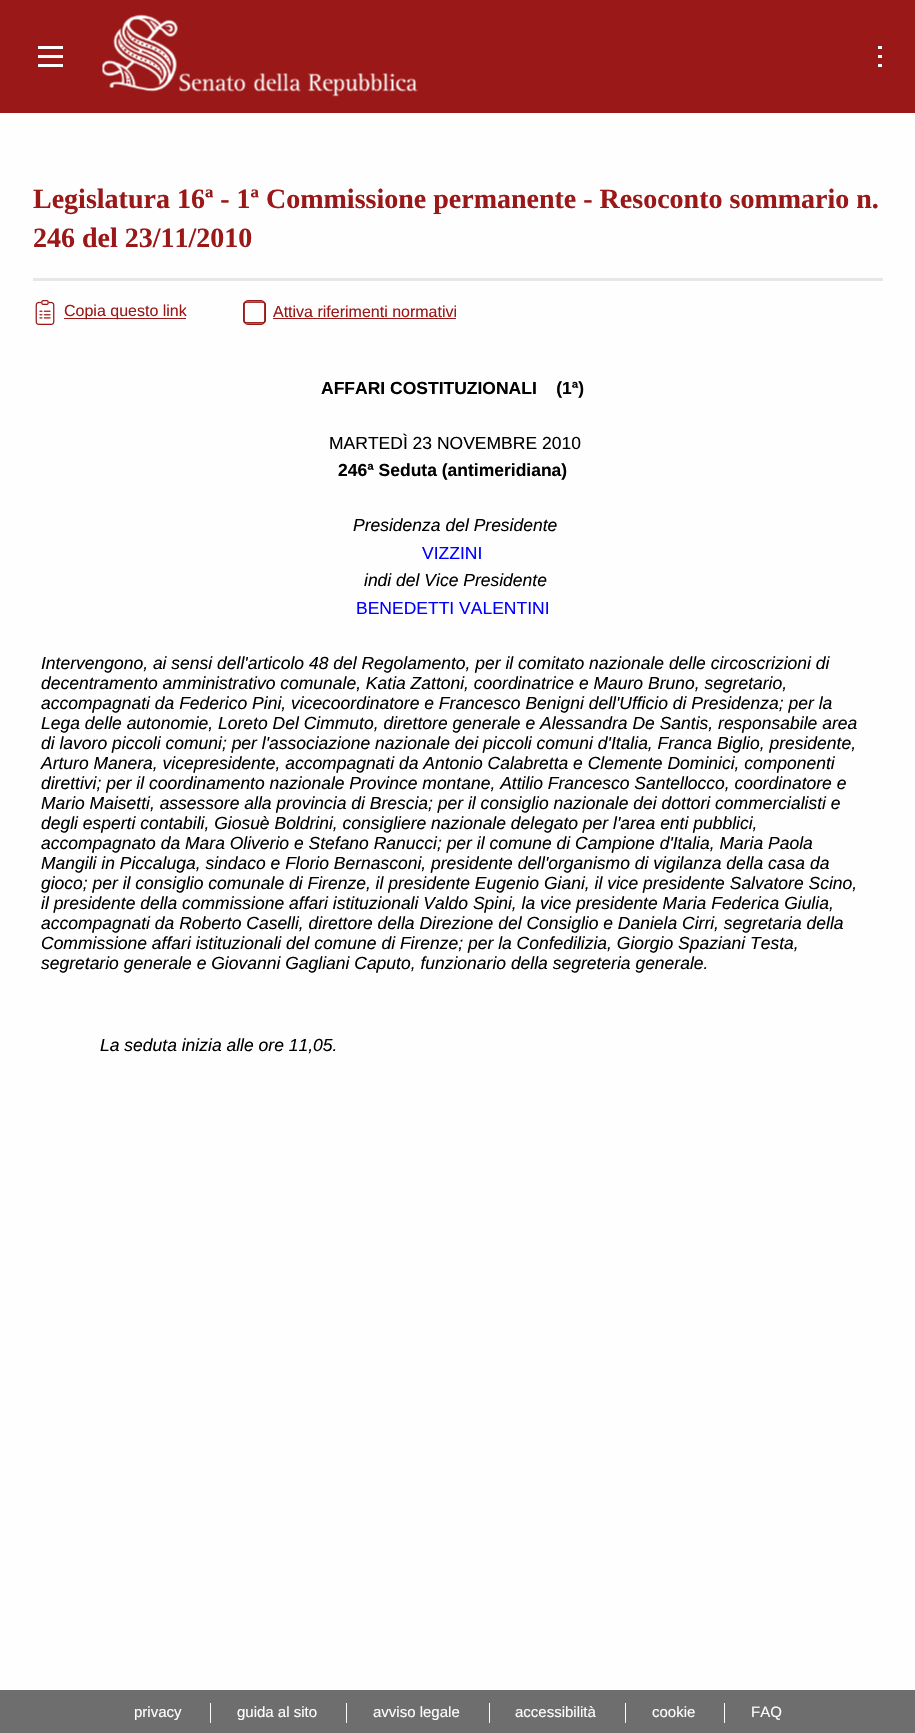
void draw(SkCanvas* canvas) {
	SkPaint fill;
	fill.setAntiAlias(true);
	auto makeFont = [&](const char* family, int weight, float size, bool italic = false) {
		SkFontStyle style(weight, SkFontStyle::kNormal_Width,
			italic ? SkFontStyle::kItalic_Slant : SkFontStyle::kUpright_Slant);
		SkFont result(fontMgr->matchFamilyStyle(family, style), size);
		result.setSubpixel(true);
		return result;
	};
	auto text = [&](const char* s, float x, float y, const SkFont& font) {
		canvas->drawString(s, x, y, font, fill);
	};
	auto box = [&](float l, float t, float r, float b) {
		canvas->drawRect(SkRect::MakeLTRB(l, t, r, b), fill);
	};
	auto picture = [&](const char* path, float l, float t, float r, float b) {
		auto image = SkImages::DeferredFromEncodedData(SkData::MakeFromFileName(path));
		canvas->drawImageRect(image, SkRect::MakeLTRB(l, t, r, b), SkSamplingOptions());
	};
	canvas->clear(0xFFFEFEFE);
	fill.setColor(0xFF9B1818);
	box(0, 0, 915, 113);
	fill.setColor(0xFFFEFEFE);
	box(38, 64, 63, 67);
	box(38, 55, 63, 58);
	box(38, 46, 63, 49);
	picture("image0.png", 102, 14, 418, 97);
	box(878, 64, 882, 67);
	box(878, 55, 882, 58);
	box(878, 46, 882, 49);
	fill.setColor(0xFFE7E7E7);
	box(33, 278, 883, 281);
	picture("image1.png", 35, 300, 55, 325);
	fill.setColor(0xFF9B1818);
	box(64, 318, 186, 319);
	picture("image2.png", 243, 301, 266, 324);
	fill.setStyle(SkPaint::kStroke_Style);
	fill.setStrokeWidth(1);
	canvas->drawRoundRect(SkRect::MakeLTRB(243.5f, 300.5f, 265.5f, 324.5f), 4.5f, 4.5f, fill);
	fill.setStyle(SkPaint::kFill_Style);
	box(273, 318, 456, 319);
	fill.setColor(0xFF6E6E6E);
	box(0, 1690, 915, 1733);
	fill.setColor(0xFFFEFEFE);
	box(210, 1703, 211, 1723);
	box(346, 1703, 347, 1723);
	box(489, 1703, 490, 1723);
	box(625, 1703, 626, 1723);
	box(724, 1703, 725, 1723);
	auto font1 = makeFont("Liberation Serif", 700, 28);
	fill.setColor(0xFF9B1818);
	text("Legislatura 16ª - 1ª Commissione permanente - Resoconto sommario n.", 33, 208, font1);
	text("246 del 23/11/2010", 33, 247, font1);
	auto font2 = makeFont("Liberation Sans", 400, 16);
	text("Copia questo link", 64, 316, font2);
	text("Attiva riferimenti normativi", 273, 317, font2);
	auto font3 = makeFont("Liberation Sans", 700, 17.5f);
	fill.setColor(0xFF000000);
	text("AFFARI COSTITUZIONALI    (1ª)", 321, 394, font3);
	auto font4 = makeFont("Liberation Sans", 400, 17.5f);
	text("MARTEDÌ 23 NOVEMBRE 2010", 329, 449, font4);
	text("246ª Seduta (antimeridiana)", 338, 476, font3);
	auto font5 = makeFont("Liberation Sans", 400, 17.5f, true);
	text("Presidenza del Presidente", 353, 531, font5);
	fill.setColor(0xFF0000FF);
	text("VIZZINI", 422, 559, font4);
	fill.setColor(0xFF000000);
	text("indi del Vice Presidente", 364, 586, font5);
	fill.setColor(0xFF0000FF);
	text("BENEDETTI VALENTINI", 356, 614, font4);
	fill.setColor(0xFF000000);
	text("Intervengono, ai sensi dell'articolo 48 del Regolamento, per il comitato nazionale delle circoscrizioni di", 41, 669, font5);
	text("decentramento amministrativo comunale, Katia Zattoni, coordinatrice e Mauro Bruno, segretario,", 41, 689, font5);
	text("accompagnati da Federico Pini, vicecoordinatore e Francesco Benigni dell'Ufficio di Presidenza; per la", 41, 709, font5);
	text("Lega delle autonomie, Loreto Del Cimmuto, direttore generale e Alessandra De Santis, responsabile area", 41, 729, font5);
	text("di lavoro piccoli comuni; per l'associazione nazionale dei piccoli comuni d'Italia, Franca Biglio, presidente,", 41, 749, font5);
	text("Arturo Manera, vicepresidente, accompagnati da Antonio Calabretta e Clemente Dominici, componenti", 41, 769, font5);
	text("direttivi; per il coordinamento nazionale Province montane, Attilio Francesco Santellocco, coordinatore e", 41, 789, font5);
	text("Mario Maisetti, assessore alla provincia di Brescia; per il consiglio nazionale dei dottori commercialisti e", 41, 809, font5);
	text("degli esperti contabili, Giosuè Boldrini, consigliere nazionale delegato per l'area enti pubblici,", 41, 829, font5);
	text("accompagnato da Mara Oliverio e Stefano Ranucci; per il comune di Campione d'Italia, Maria Paola", 41, 849, font5);
	text("Mangili in Piccaluga, sindaco e Florio Bernasconi, presidente dell'organismo di vigilanza della casa da", 41, 869, font5);
	text("gioco; per il consiglio comunale di Firenze, il presidente Eugenio Giani, il vice presidente Salvatore Scino,", 41, 889, font5);
	text("il presidente della commissione affari istituzionali Valdo Spini, la vice presidente Maria Federica Giulia,", 41, 909, font5);
	text("accompagnati da Roberto Caselli, direttore della Direzione del Consiglio e Daniela Cirri, segretaria della", 41, 929, font5);
	text("Commissione affari istituzionali del comune di Firenze; per la Confedilizia, Giorgio Spaziani Testa,", 41, 949, font5);
	text("segretario generale e Giovanni Gagliani Caputo, funzionario della segreteria generale.", 41, 969, font5);
	text("La seduta inizia alle ore 11,05.", 100, 1051, font5);
	auto font6 = makeFont("Liberation Sans", 400, 15);
	fill.setColor(0xFFFEFEFE);
	text("privacy", 134, 1717, font6);
	text("guida al sito", 237, 1717, font6);
	text("avviso legale", 373, 1717, font6);
	text("accessibilità", 515, 1717, font6);
	text("cookie", 652, 1717, font6);
	text("FAQ", 751, 1717, font6);
}
